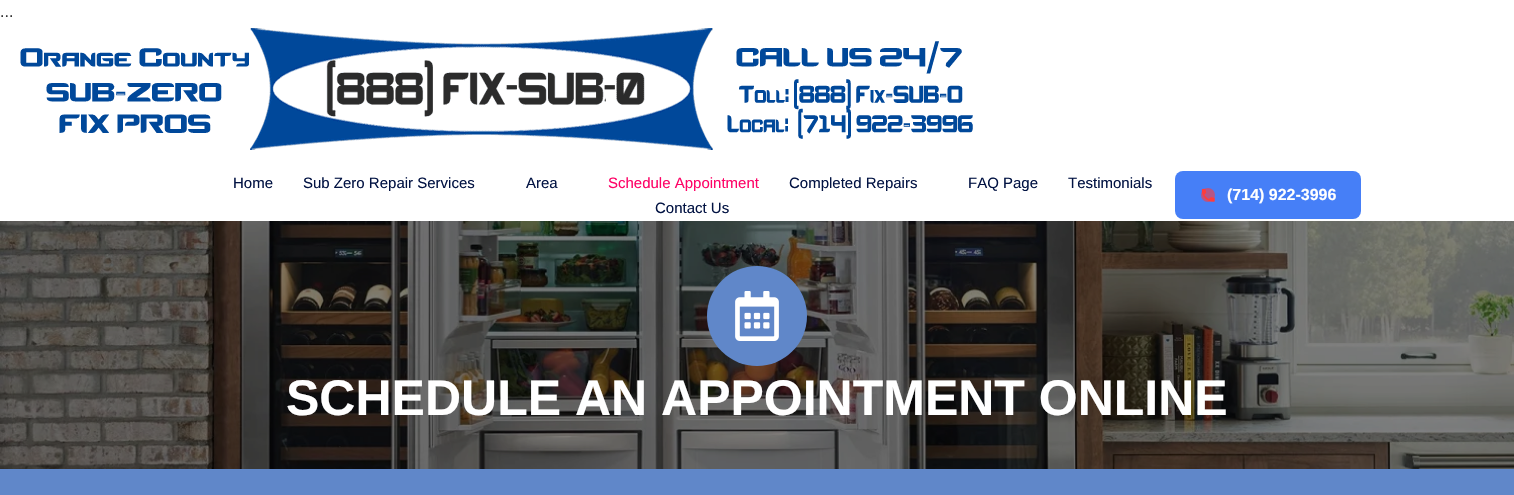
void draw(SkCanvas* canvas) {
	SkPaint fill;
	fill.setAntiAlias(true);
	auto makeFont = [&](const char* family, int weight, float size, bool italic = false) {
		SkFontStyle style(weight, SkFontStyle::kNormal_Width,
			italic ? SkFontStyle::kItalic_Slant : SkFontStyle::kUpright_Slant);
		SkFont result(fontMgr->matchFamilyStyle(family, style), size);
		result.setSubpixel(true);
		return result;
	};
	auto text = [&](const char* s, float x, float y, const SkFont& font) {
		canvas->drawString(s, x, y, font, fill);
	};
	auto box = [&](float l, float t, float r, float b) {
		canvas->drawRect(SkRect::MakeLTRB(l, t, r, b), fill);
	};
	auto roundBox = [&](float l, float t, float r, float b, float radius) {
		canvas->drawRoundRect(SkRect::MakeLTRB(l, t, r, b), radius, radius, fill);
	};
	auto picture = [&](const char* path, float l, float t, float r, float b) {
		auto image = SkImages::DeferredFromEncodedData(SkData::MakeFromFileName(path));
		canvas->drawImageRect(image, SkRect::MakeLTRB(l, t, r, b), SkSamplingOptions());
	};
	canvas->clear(0xFFFFFFFF);
	picture("image0.png", 20, 28, 973, 150);
	fill.setColor(0xFF467FF7);
	roundBox(1175, 171, 1361, 219, 8);
	fill.setColor(0xFFB55686);
	canvas->drawCircle(1208, 195, 7, fill);
	picture("image1.png", 1201, 188, 1215, 202);
	picture("image2.png", 0, 221, 1514, 469);
	fill.setColor(0xFF6087C9);
	canvas->drawCircle(757, 316, 50, fill);
	picture("image3.png", 735, 291, 779, 341);
	box(0, 469, 1514, 495);
	auto font1 = makeFont("Liberation Sans", 400, 16);
	fill.setColor(0xFF333333);
	text("...", 0, 17, font1);
	auto font2 = makeFont("Liberation Sans", 400, 15);
	fill.setColor(0xFF021343);
	text("Home", 233, 188, font2);
	text("Sub Zero Repair Services", 303, 188, font2);
	text("Area", 526, 188, font2);
	fill.setColor(0xFFFE0467);
	text("Schedule Appointment", 608, 188, font2);
	fill.setColor(0xFF021343);
	text("Completed Repairs", 789, 188, font2);
	text("FAQ Page", 968, 188, font2);
	text("Testimonials", 1068, 188, font2);
	text("Contact Us", 655, 213, font2);
	auto font3 = makeFont("Liberation Sans", 700, 16);
	fill.setColor(0xFFFFFFFF);
	text("(714) 922-3996", 1227, 200, font3);
	auto font4 = makeFont("Liberation Sans", 700, 50);
	text("SCHEDULE AN APPOINTMENT ONLINE", 286, 415, font4);
}
